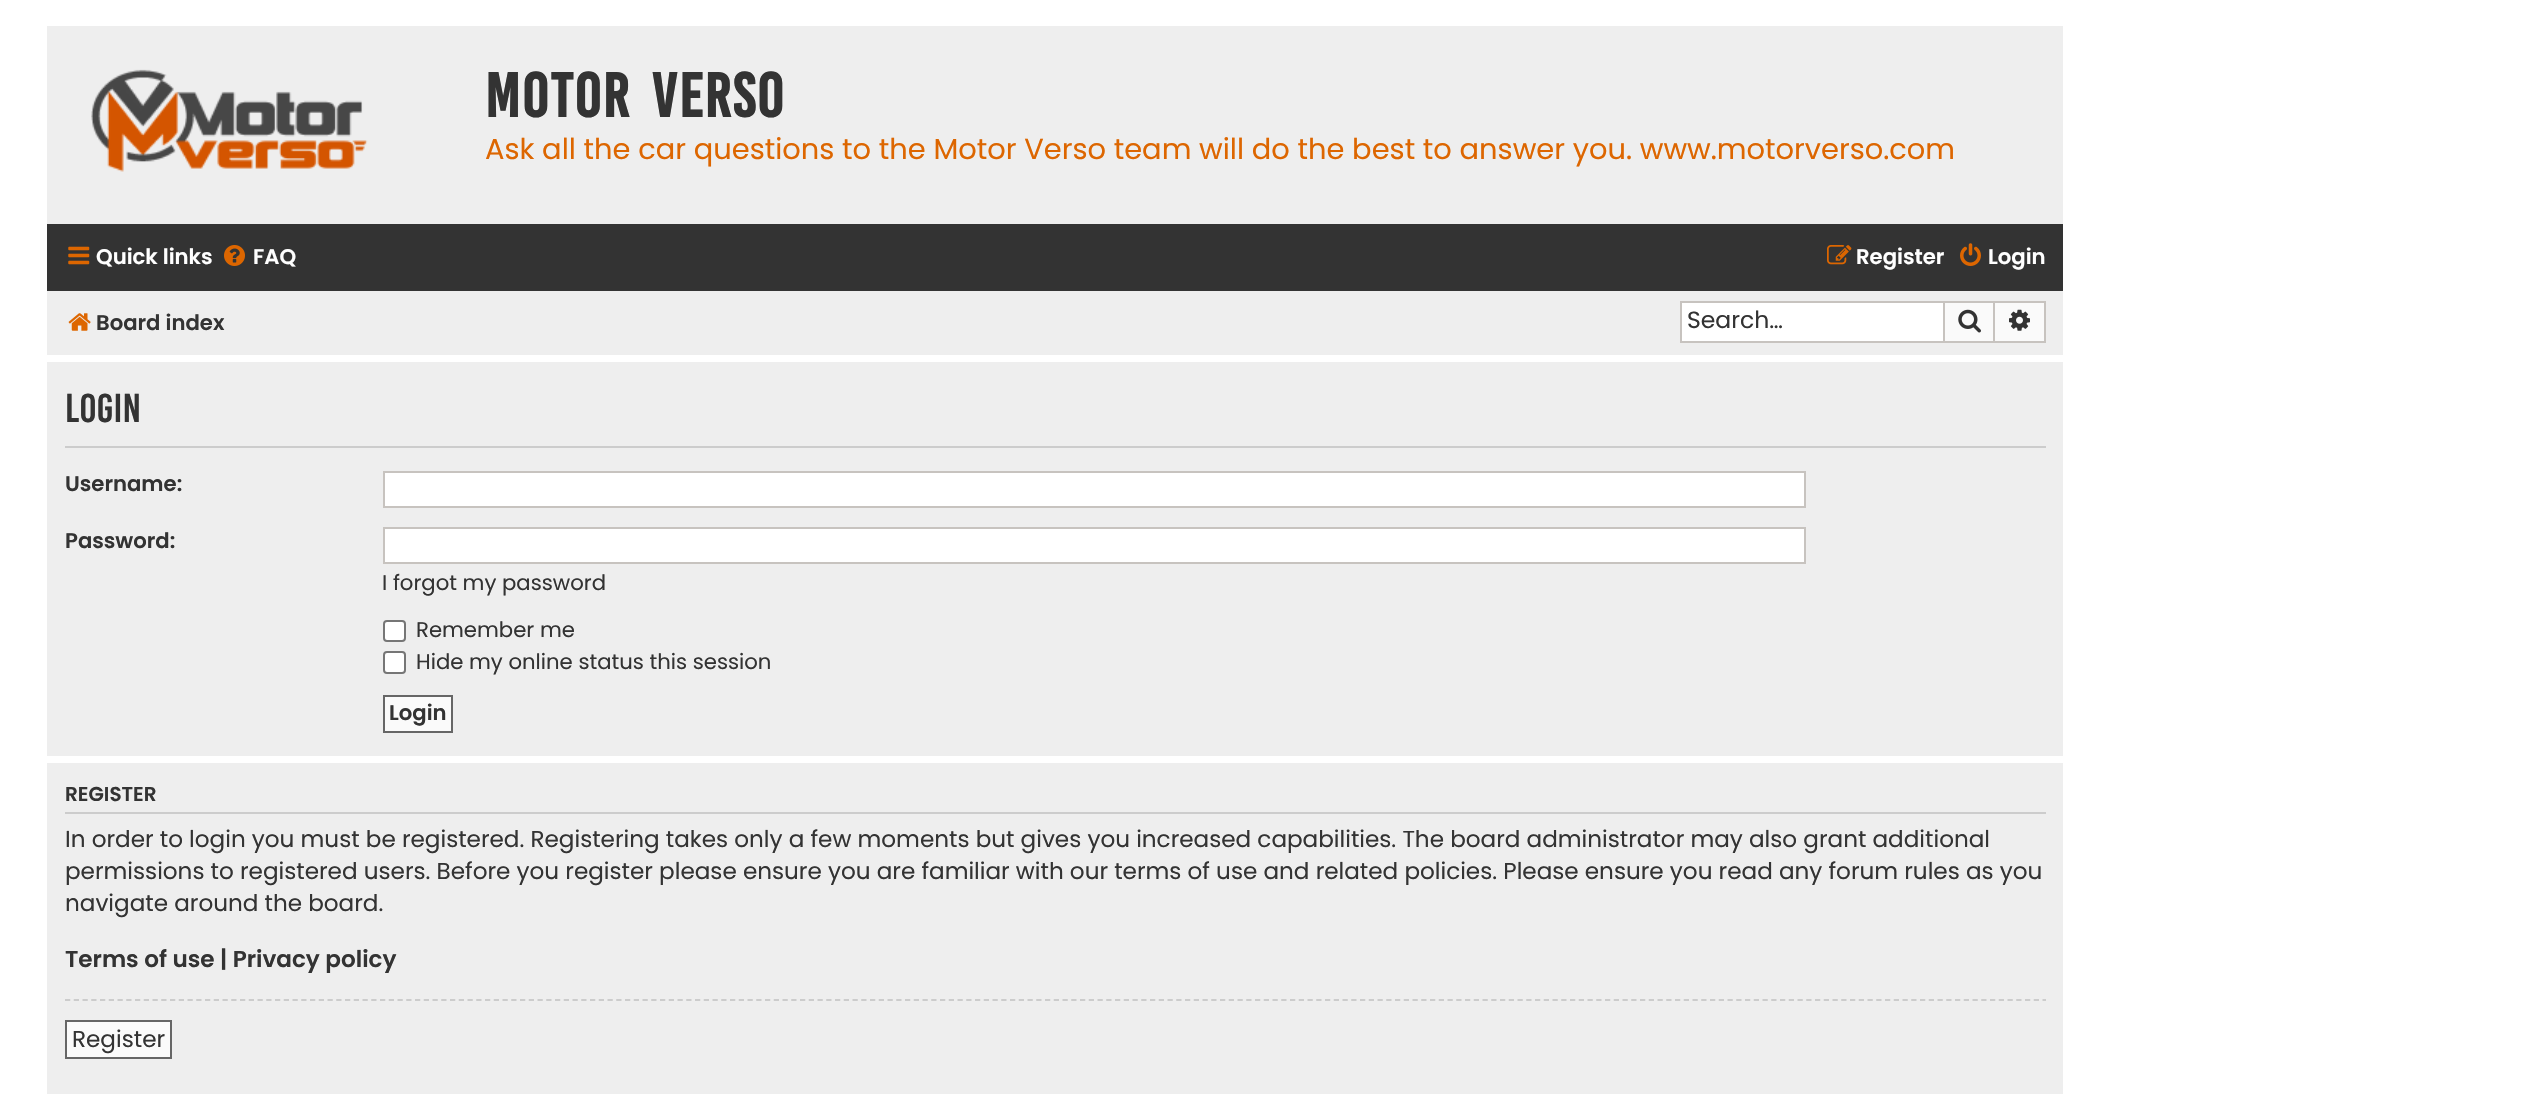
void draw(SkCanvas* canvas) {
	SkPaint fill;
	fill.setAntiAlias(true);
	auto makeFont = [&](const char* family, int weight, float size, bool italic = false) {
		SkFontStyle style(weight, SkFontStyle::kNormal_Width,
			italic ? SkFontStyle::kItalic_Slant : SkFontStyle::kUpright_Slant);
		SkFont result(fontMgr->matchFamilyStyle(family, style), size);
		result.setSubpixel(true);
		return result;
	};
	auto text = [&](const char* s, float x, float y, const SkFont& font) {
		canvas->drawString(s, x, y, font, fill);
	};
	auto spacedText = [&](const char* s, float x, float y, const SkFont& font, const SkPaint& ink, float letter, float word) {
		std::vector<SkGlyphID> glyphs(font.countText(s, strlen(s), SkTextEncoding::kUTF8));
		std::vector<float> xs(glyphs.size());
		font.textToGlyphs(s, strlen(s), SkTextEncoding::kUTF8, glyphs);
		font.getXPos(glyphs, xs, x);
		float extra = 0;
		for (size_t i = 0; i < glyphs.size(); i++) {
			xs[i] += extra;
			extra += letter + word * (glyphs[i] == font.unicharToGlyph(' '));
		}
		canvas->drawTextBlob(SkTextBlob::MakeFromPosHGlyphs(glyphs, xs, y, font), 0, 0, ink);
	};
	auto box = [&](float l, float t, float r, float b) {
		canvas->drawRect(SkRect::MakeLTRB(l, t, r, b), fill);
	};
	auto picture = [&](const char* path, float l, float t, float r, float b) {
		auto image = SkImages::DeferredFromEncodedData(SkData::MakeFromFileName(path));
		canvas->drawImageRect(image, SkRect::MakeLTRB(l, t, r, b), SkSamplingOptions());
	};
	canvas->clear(0xFFFFFFFF);
	fill.setColor(0xFFEEEEEE);
	box(47, 26, 2063, 224);
	picture("image0.png", 91, 69, 368, 172);
	fill.setColor(0xFF333333);
	box(47, 224, 2063, 291);
	picture("image1.png", 68, 246, 90, 265);
	picture("image2.png", 224, 245, 245, 266);
	picture("image3.png", 1827, 245, 1852, 265);
	picture("image4.png", 1960, 243, 1981, 266);
	fill.setColor(0xFFEEEEEE);
	box(47, 291, 2063, 355);
	picture("image5.png", 68, 313, 91, 331);
	fill.setColor(0xFFFFFFFF);
	box(1682, 303, 1943, 341);
	fill.setColor(0xFFC7C3BF);
	box(1680, 301, 1943, 303);
	box(1680, 341, 1943, 343);
	box(1680, 301, 1682, 343);
	fill.setColor(0xFFFAFAFA);
	canvas->drawRect(SkRect::MakeLTRB(1944, 302, 1994, 342), fill);
	fill.setStyle(SkPaint::kStroke_Style);
	fill.setStrokeWidth(2);
	fill.setColor(0xFFC7C3BF);
	canvas->drawRect(SkRect::MakeLTRB(1944, 302, 1994, 342), fill);
	picture("image6.png", 1958, 309, 1981, 333);
	fill.setStyle(SkPaint::kFill_Style);
	fill.setColor(0xFFFAFAFA);
	box(1995, 303, 2044, 341);
	fill.setColor(0xFFC7C3BF);
	box(1995, 301, 2046, 303);
	box(2044, 301, 2046, 343);
	box(1995, 341, 2046, 343);
	picture("image7.png", 2009, 309, 2030, 331);
	fill.setColor(0xFFEEEEEE);
	box(47, 362, 2063, 756);
	fill.setColor(0xFFCCCCCC);
	box(65, 446, 2046, 448);
	fill.setColor(0xFFFFFFFF);
	canvas->drawRect(SkRect::MakeLTRB(384, 472, 1805, 507), fill);
	fill.setStyle(SkPaint::kStroke_Style);
	fill.setColor(0xFFC7C3BF);
	canvas->drawRect(SkRect::MakeLTRB(384, 472, 1805, 507), fill);
	fill.setStyle(SkPaint::kFill_Style);
	fill.setColor(0xFFFFFFFF);
	canvas->drawRect(SkRect::MakeLTRB(384, 528, 1805, 563), fill);
	fill.setStyle(SkPaint::kStroke_Style);
	fill.setColor(0xFFC7C3BF);
	canvas->drawRect(SkRect::MakeLTRB(384, 528, 1805, 563), fill);
	fill.setStyle(SkPaint::kFill_Style);
	fill.setColor(0xFFFFFFFF);
	canvas->drawRoundRect(SkRect::MakeLTRB(384, 621, 405, 641), 3, 3, fill);
	fill.setStyle(SkPaint::kStroke_Style);
	fill.setColor(0xFF767676);
	canvas->drawRoundRect(SkRect::MakeLTRB(384, 621, 405, 641), 3, 3, fill);
	fill.setStyle(SkPaint::kFill_Style);
	fill.setColor(0xFFFFFFFF);
	canvas->drawRoundRect(SkRect::MakeLTRB(384, 652, 405, 673), 3, 3, fill);
	fill.setStyle(SkPaint::kStroke_Style);
	fill.setColor(0xFF767676);
	canvas->drawRoundRect(SkRect::MakeLTRB(384, 652, 405, 673), 3, 3, fill);
	fill.setStyle(SkPaint::kFill_Style);
	fill.setColor(0xFFFAFAFA);
	canvas->drawRect(SkRect::MakeLTRB(384, 696, 452, 732), fill);
	fill.setStyle(SkPaint::kStroke_Style);
	fill.setColor(0xFF666666);
	canvas->drawRect(SkRect::MakeLTRB(384, 696, 452, 732), fill);
	fill.setStyle(SkPaint::kFill_Style);
	fill.setColor(0xFFEEEEEE);
	box(47, 763, 2063, 1094);
	fill.setColor(0xFFCCCCCC);
	box(65, 812, 2046, 814);
	fill.setStyle(SkPaint::kStroke_Style);
	fill.setStrokeWidth(1.8f);
	fill.setPathEffect(SkDashPathEffect::Make({{5.25f, 3.5f}}, 0));
	canvas->drawPath(SkPathBuilder().moveTo(65, 1000).lineTo(2046, 1000).detach(), fill);
	fill.setPathEffect(nullptr);
	fill.setStyle(SkPaint::kFill_Style);
	fill.setColor(0xFFFAFAFA);
	canvas->drawRect(SkRect::MakeLTRB(66, 1021, 171, 1058), fill);
	fill.setStyle(SkPaint::kStroke_Style);
	fill.setStrokeWidth(2);
	fill.setColor(0xFF666666);
	canvas->drawRect(SkRect::MakeLTRB(66, 1021, 171, 1058), fill);
	auto font1 = makeFont("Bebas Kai", 700, 48);
	fill.setStyle(SkPaint::kFill_Style);
	fill.setColor(0xFF333333);
	spacedText("Motor Verso", 485, 117, font1, fill, 1.75f, 7);
	auto font2 = makeFont("Poppins", 400, 28.88f);
	fill.setColor(0xFFDD6600);
	text("Ask all the car questions to the Motor Verso team will do the best to answer you. www.motorverso.com", 485, 159, font2);
	auto font3 = makeFont("Poppins", 600, 21.2f);
	fill.setColor(0xFFFFFFFF);
	text("Quick links", 96, 264, font3);
	text("FAQ", 253, 264, font3);
	text("Register", 1856, 264, font3);
	text("Login", 1988, 264, font3);
	fill.setColor(0xFF333333);
	text("Board index", 96, 330, font3);
	auto font4 = makeFont("Poppins", 400, 23.5f);
	text("Search…", 1687, 328, font4);
	auto font5 = makeFont("Bebas Kai", 400, 31);
	text("Login", 65, 422, font5);
	text("Username:", 65, 491, font3);
	text("Password:", 65, 548, font3);
	auto font6 = makeFont("Poppins", 400, 21.2f);
	text("I forgot my password", 382, 590, font6);
	text("Remember me", 416, 637, font6);
	text("Hide my online status this session", 416, 669, font6);
	text("Login", 389, 720, font3);
	auto font7 = makeFont("Poppins", 600, 20);
	text("REGISTER", 65, 801, font7);
	auto font8 = makeFont("Poppins", 400, 23.1f);
	text("In order to login you must be registered. Registering takes only a few moments but gives you increased capabilities. The board administrator may also grant additional", 65, 847, font8);
	text("permissions to registered users. Before you register please ensure you are familiar with our terms of use and related policies. Please ensure you read any forum rules as you", 65, 879, font8);
	text("navigate around the board.", 65, 911, font8);
	auto font9 = makeFont("Poppins", 600, 23.1f);
	text("Terms of use | Privacy policy", 65, 967, font9);
	text("Register", 72, 1047, font8);
}
